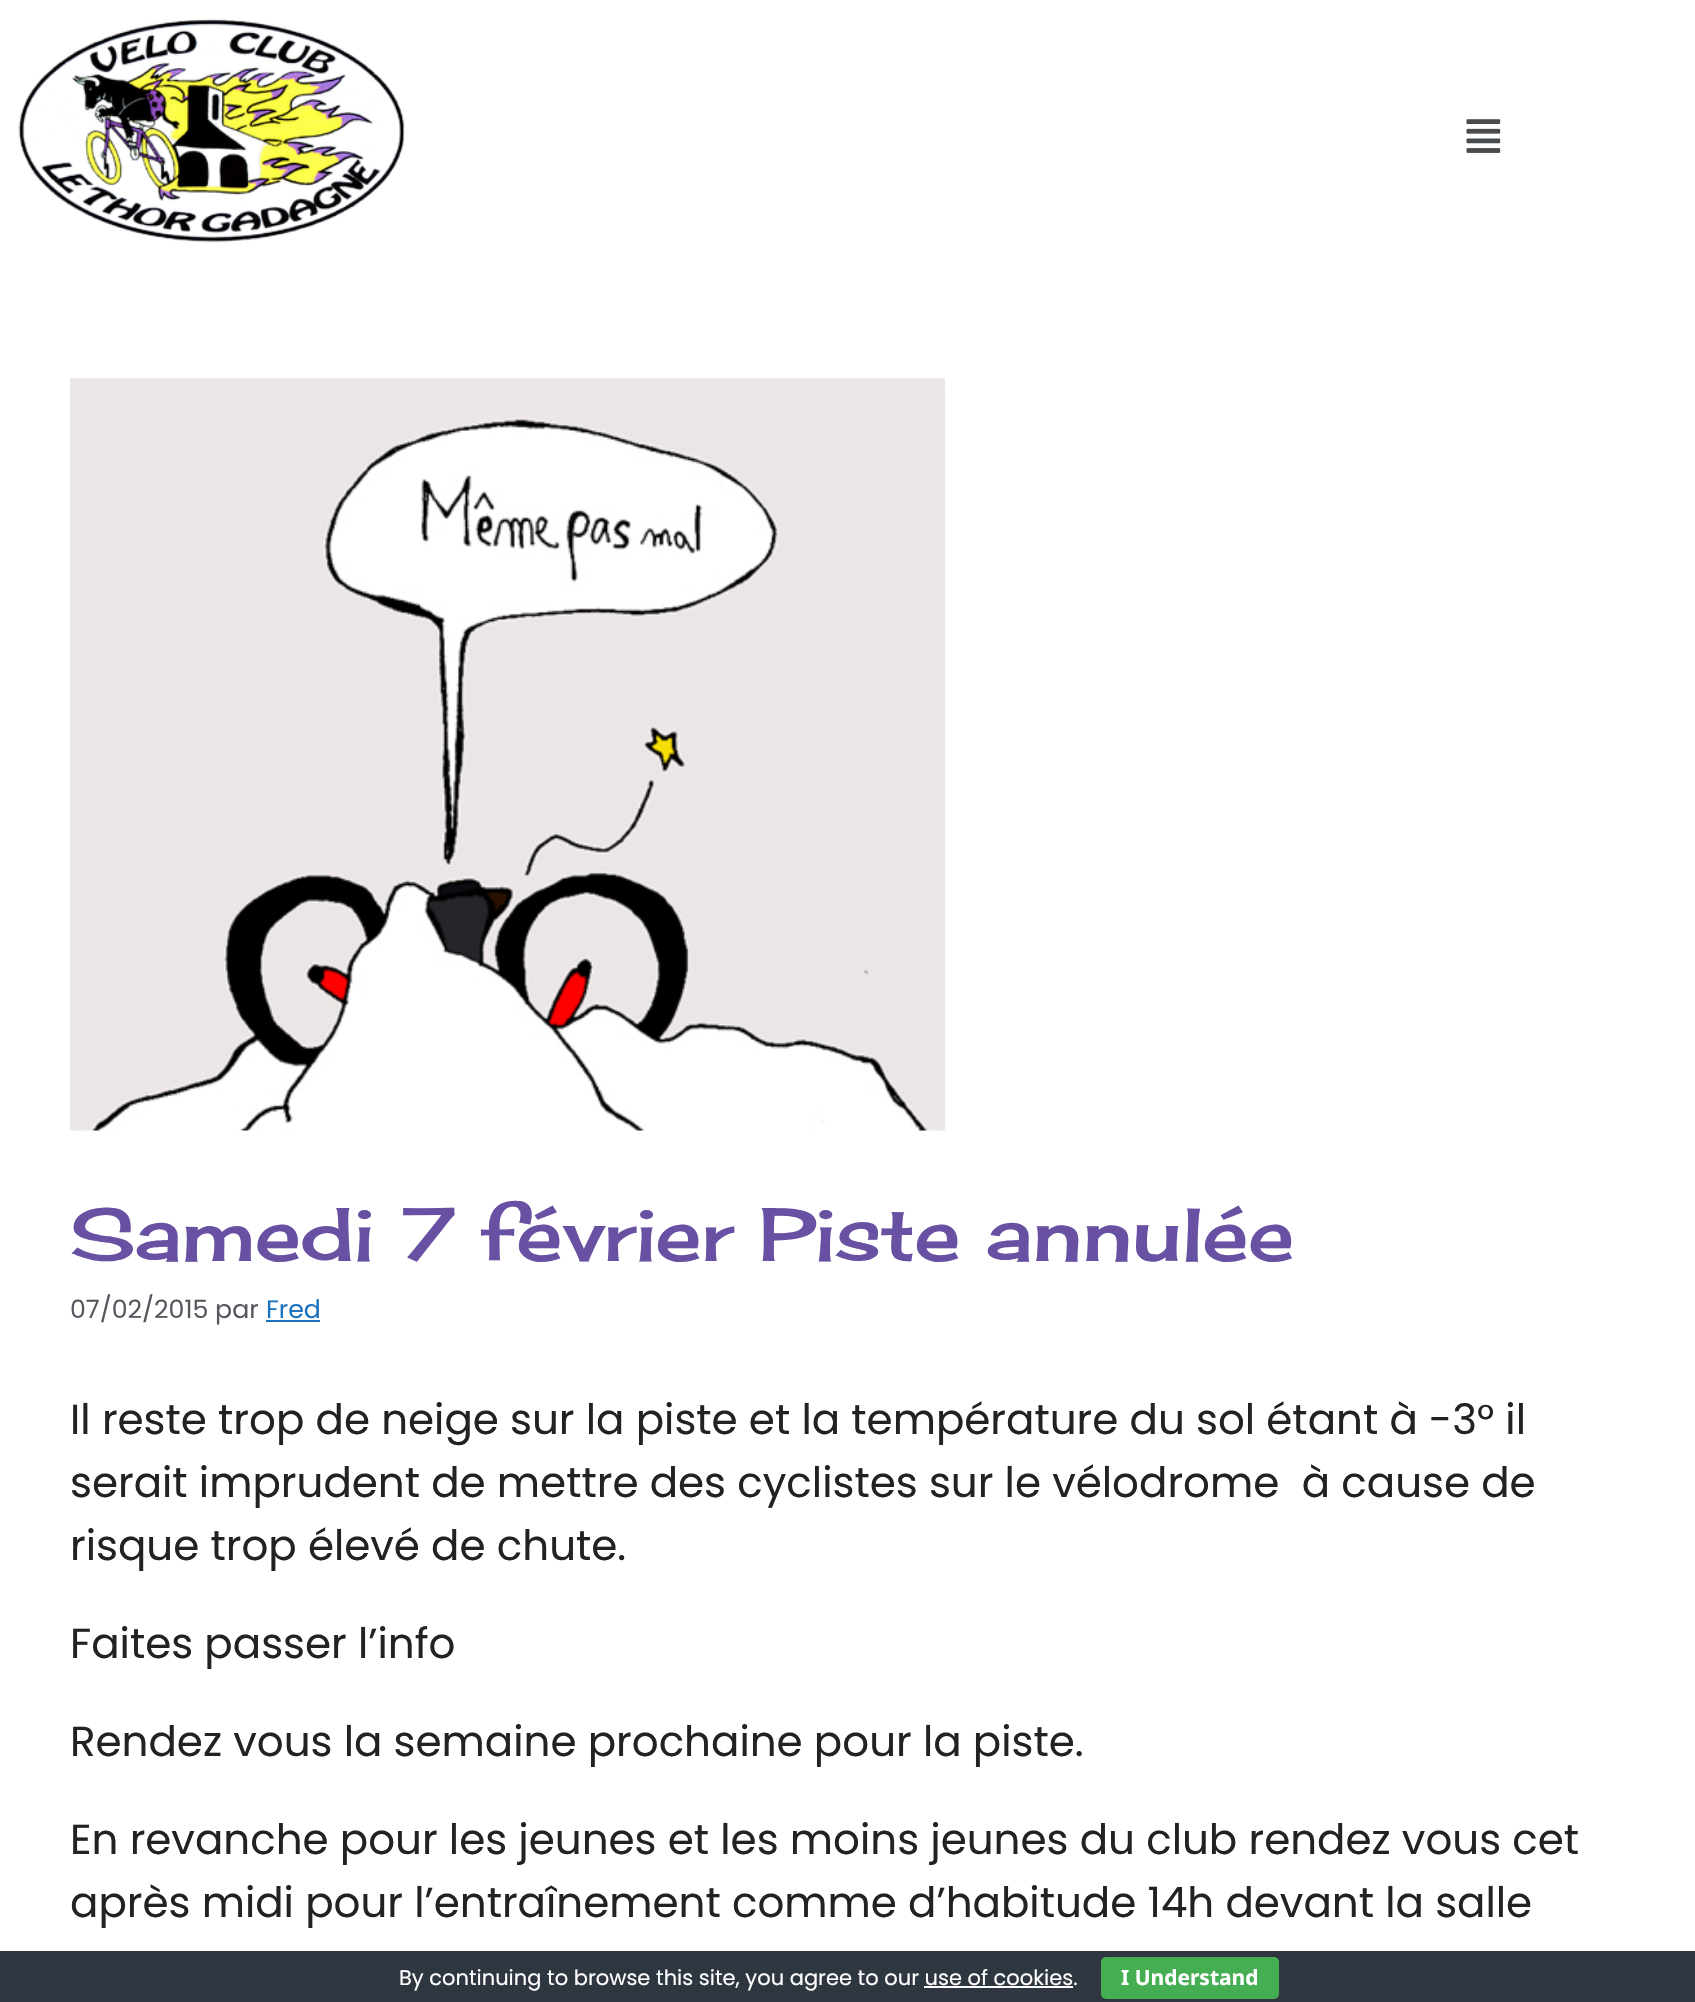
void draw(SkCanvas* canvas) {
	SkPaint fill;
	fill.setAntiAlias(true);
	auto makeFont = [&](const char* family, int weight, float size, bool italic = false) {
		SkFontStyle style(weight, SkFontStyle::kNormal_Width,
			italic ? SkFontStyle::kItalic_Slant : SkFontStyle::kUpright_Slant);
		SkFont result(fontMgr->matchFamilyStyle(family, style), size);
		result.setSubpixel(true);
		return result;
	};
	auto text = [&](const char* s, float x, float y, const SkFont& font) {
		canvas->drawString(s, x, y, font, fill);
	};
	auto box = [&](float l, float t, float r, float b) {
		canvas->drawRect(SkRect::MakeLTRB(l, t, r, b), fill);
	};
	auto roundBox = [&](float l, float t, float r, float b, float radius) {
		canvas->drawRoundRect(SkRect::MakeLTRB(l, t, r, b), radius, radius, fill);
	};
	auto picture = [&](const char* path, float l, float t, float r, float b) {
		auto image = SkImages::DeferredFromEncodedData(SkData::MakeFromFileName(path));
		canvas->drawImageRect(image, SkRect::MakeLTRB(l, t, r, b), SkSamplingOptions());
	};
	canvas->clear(0xFFFFFFFF);
	picture("image0.png", 18, 18, 405, 243);
	picture("image1.png", 1466, 119, 1501, 153);
	picture("image2.png", 70, 378, 945, 1131);
	fill.setColor(0xFF1E73BE);
	box(266, 1320, 320, 1322);
	fill.setColor(0xFF2E363F);
	box(0, 1951, 1695, 2002);
	fill.setColor(0xFF45AE52);
	roundBox(1101, 1957, 1279, 1999, 5);
	fill.setColor(0xFFFFFFFF);
	box(924, 1986, 1073, 1988);
	auto font1 = makeFont("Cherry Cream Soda", 400, 73.5f);
	fill.setColor(0xFF6851A3);
	text("Samedi 7 février Piste annulée", 70, 1261, font1);
	auto font2 = makeFont("Poppins", 400, 25.25f);
	fill.setColor(0xFF575760);
	text("07/02/2015 par", 70, 1318, font2);
	fill.setColor(0xFF1E73BE);
	text("Fred", 266, 1318, font2);
	auto font3 = makeFont("Poppins", 400, 42);
	fill.setColor(0xFF222222);
	text("Il reste trop de neige sur la piste et la température du sol étant à -3° il", 70, 1434, font3);
	text("serait imprudent de mettre des cyclistes sur le vélodrome  à cause de", 70, 1497, font3);
	text("risque trop élevé de chute.", 70, 1560, font3);
	text("Faites passer l’info", 70, 1658, font3);
	text("Rendez vous la semaine prochaine pour la piste.", 70, 1756, font3);
	text("En revanche pour les jeunes et les moins jeunes du club rendez vous cet", 70, 1854, font3);
	text("après midi pour l’entraînement comme d’habitude 14h devant la salle", 70, 1917, font3);
	auto font4 = makeFont("Poppins", 400, 21);
	fill.setColor(0xFFFFFFFF);
	text("By continuing to browse this site, you agree to our use of cookies.", 399, 1985, font4);
	auto font5 = makeFont("Noto Sans", 700, 21);
	text("I Understand", 1121, 1985, font5);
}
